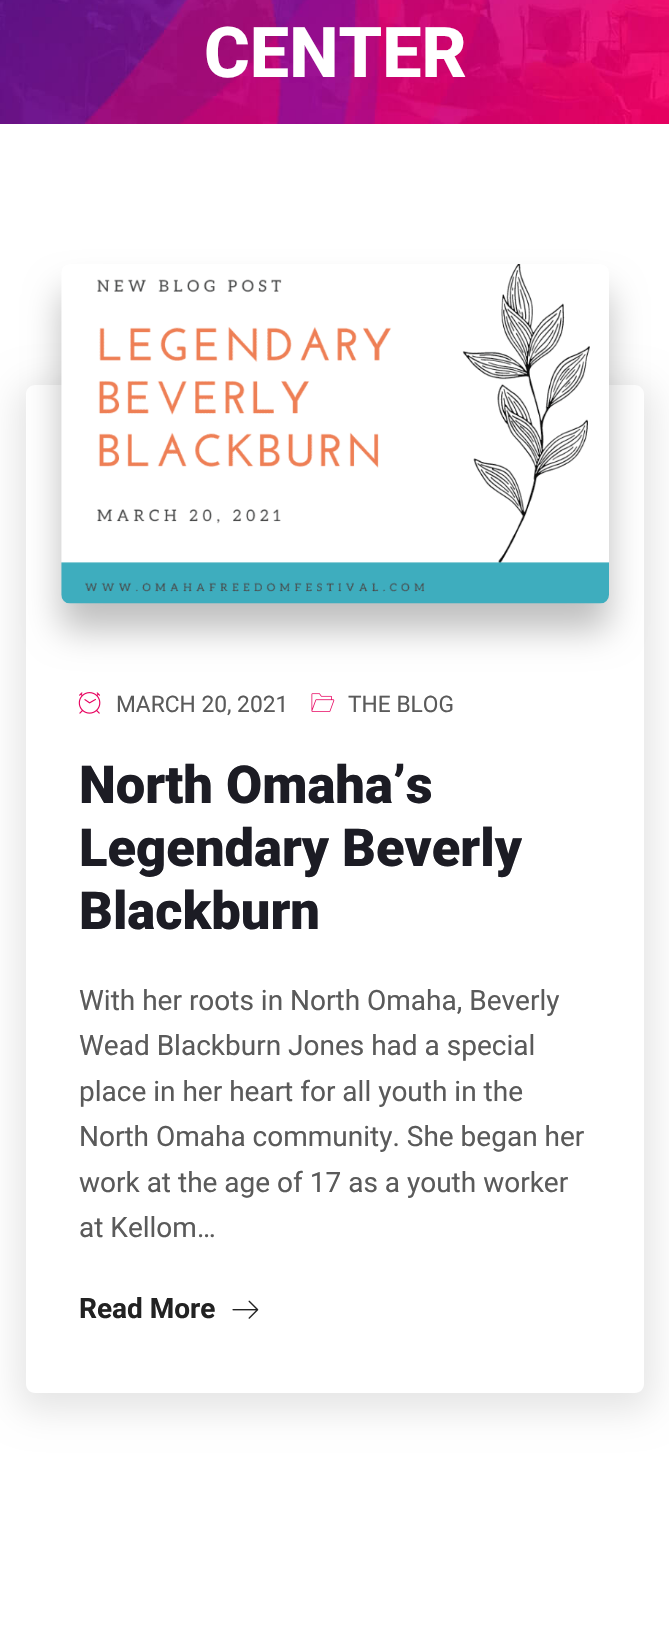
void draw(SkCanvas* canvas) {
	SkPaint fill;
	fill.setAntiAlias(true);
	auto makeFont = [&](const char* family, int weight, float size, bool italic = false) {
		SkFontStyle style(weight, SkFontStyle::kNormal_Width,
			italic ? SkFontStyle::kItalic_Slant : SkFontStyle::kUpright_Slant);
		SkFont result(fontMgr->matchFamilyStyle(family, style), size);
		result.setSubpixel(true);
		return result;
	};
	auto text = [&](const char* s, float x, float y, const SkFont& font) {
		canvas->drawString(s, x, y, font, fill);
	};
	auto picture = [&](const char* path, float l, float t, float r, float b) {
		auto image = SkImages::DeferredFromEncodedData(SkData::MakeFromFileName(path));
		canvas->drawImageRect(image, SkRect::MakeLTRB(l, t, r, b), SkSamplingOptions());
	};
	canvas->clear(0xFFFFFFFF);
	picture("image0.png", 0, 0, 669, 124);
	fill.setColor(0x40000000);
	fill.setMaskFilter(SkMaskFilter::MakeBlur(kNormal_SkBlurStyle, 17.5f));
	canvas->drawRoundRect(SkRect::MakeLTRB(61, 291, 609, 630), 9, 9, fill);
	fill.setMaskFilter(nullptr);
	canvas->save();
	canvas->clipPath(SkPathBuilder(SkPathFillType::kEvenOdd).moveTo(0, 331).lineTo(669, 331).lineTo(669, 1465).lineTo(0, 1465).close().moveTo(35, 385).lineTo(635, 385).cubicTo(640, 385, 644, 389, 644, 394).lineTo(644, 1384).cubicTo(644, 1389, 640, 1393, 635, 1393).lineTo(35, 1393).cubicTo(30, 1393, 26, 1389, 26, 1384).lineTo(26, 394).cubicTo(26, 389, 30, 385, 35, 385).close().detach(), true);
	fill.setColor(0x1A000000);
	fill.setMaskFilter(SkMaskFilter::MakeBlur(kNormal_SkBlurStyle, 17.5f));
	canvas->drawRoundRect(SkRect::MakeLTRB(18, 385, 653, 1411), 18, 18, fill);
	fill.setMaskFilter(nullptr);
	canvas->restore();
	picture("image1.png", 61, 264, 609, 604);
	picture("image2.png", 78, 692, 101, 714);
	picture("image3.png", 311, 693, 335, 712);
	picture("image4.png", 232, 1300, 259, 1319);
	auto font1 = makeFont("Roboto", 800, 70);
	fill.setColor(0xFFFFFFFF);
	text("CENTER", 204, 77, font1);
	auto font2 = makeFont("Roboto", 400, 22.75f);
	fill.setColor(0xFF5A5A5A);
	text("MARCH 20, 2021", 116, 712, font2);
	text("THE BLOG", 348, 712, font2);
	auto font3 = makeFont("Roboto", 900, 52.5f);
	fill.setColor(0xFF1C1C24);
	text("North Omaha’s", 79, 803, font3);
	text("Legendary Beverly", 79, 866, font3);
	text("Blackburn", 79, 929, font3);
	auto font4 = makeFont("Roboto", 400, 28);
	fill.setColor(0xFF5A5A5A);
	text("With her roots in North Omaha, Beverly", 79, 1010, font4);
	text("Wead Blackburn Jones had a special", 79, 1055, font4);
	text("place in her heart for all youth in the", 79, 1101, font4);
	text("North Omaha community. She began her", 79, 1146, font4);
	text("work at the age of 17 as a youth worker", 79, 1192, font4);
	text("at Kellom…", 79, 1237, font4);
	auto font5 = makeFont("Roboto", 700, 28);
	fill.setColor(0xFF222222);
	text("Read More", 79, 1318, font5);
}
